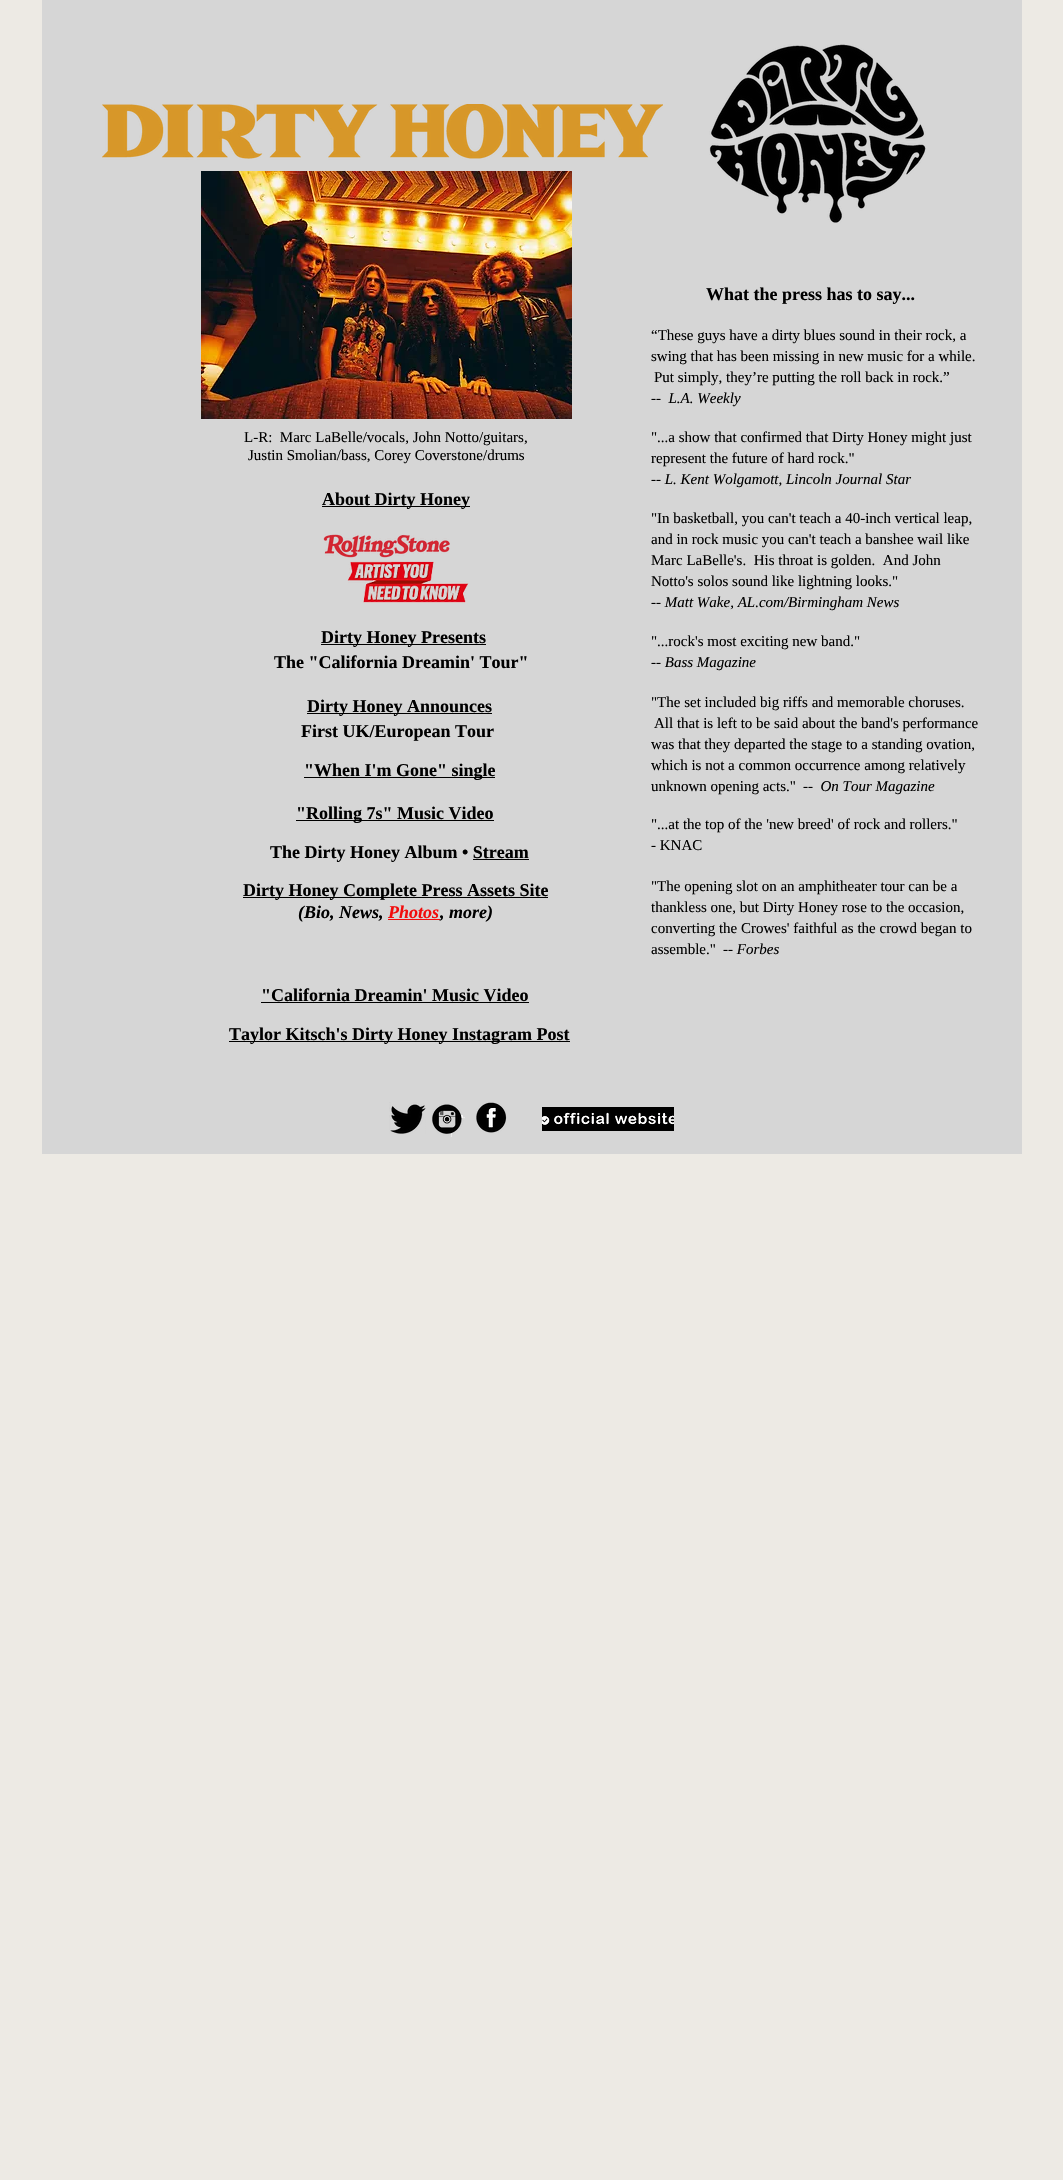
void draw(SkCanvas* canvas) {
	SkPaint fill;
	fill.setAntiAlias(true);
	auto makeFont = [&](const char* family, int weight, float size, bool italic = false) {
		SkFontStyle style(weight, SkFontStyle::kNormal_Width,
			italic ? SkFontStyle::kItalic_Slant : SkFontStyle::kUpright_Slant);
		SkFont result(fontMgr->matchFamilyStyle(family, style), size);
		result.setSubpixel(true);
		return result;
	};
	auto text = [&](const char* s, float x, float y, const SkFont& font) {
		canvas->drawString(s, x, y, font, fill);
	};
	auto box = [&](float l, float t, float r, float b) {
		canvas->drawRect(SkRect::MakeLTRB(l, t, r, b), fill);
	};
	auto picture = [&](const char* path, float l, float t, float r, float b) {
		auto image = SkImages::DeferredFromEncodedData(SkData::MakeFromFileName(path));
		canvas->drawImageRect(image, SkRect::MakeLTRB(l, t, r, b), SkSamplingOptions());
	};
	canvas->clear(0xFFEDEAE4);
	fill.setColor(0xFFD6D6D6);
	box(42, 0, 1022, 1154);
	picture("image0.png", 102, 104, 663, 160);
	picture("image1.png", 709, 44, 926, 223);
	picture("image2.png", 201, 171, 572, 419);
	fill.setColor(0xFF000000);
	box(322, 506, 470, 507);
	picture("image3.png", 323, 534, 450, 558);
	picture("image4.png", 347, 561, 469, 603);
	box(321, 644, 486, 645);
	box(307, 713, 492, 714);
	box(304, 777, 495, 778);
	box(296, 820, 494, 821);
	box(473, 859, 529, 860);
	box(243, 897, 548, 898);
	fill.setColor(0xFFF20C0C);
	box(388, 919, 440, 920);
	fill.setColor(0xFF000000);
	box(261, 1002, 529, 1003);
	box(229, 1041, 570, 1042);
	picture("image5.png", 389, 1102, 426, 1134);
	picture("image6.png", 432, 1104, 465, 1137);
	picture("image7.png", 476, 1102, 507, 1133);
	picture("image8.png", 542, 1107, 674, 1131);
	auto font1 = makeFont("Liberation Serif", 700, 18);
	text("What the press has to say...", 706, 300, font1);
	auto font2 = makeFont("Liberation Serif", 400, 15);
	text("L-R:  Marc LaBelle/vocals, John Notto/guitars,", 244, 442, font2);
	text("Justin Smolian/bass, Corey Coverstone/drums", 248, 460, font2);
	text("“These guys have a dirty blues sound in their rock, a", 651, 340, font2);
	text("swing that has been missing in new music for a while.", 651, 361, font2);
	text("Put simply, they’re putting the roll back in rock.”", 654, 382, font2);
	auto font3 = makeFont("Liberation Serif", 400, 15, true);
	text("--  L.A. Weekly", 651, 403, font3);
	text("\"...a show that confirmed that Dirty Honey might just", 651, 442, font2);
	text("represent the future of hard rock.\"", 651, 463, font2);
	text("-- L. Kent Wolgamott, Lincoln Journal Star", 651, 484, font3);
	text("\"In basketball, you can't teach a 40-inch vertical leap,", 651, 523, font2);
	text("and in rock music you can't teach a banshee wail like", 651, 544, font2);
	text("Marc LaBelle's.  His throat is golden.  And John", 651, 565, font2);
	text("Notto's solos sound like lightning looks.\"", 651, 586, font2);
	text("-- Matt Wake, AL.com/Birmingham News", 651, 607, font3);
	text("\"...rock's most exciting new band.\"", 651, 646, font2);
	text("-- Bass Magazine", 651, 667, font3);
	text("\"The set included big riffs and memorable choruses.", 651, 707, font2);
	text("All that is left to be said about the band's performance", 654, 728, font2);
	text("was that they departed the stage to a standing ovation,", 651, 749, font2);
	text("which is not a common occurrence among relatively", 651, 770, font2);
	text("unknown opening acts.\"", 651, 791, font2);
	text("--  On Tour Magazine", 803, 791, font3);
	text("\"...at the top of the 'new breed' of rock and rollers.\"", 651, 829, font2);
	text("- KNAC", 651, 850, font2);
	text("\"The opening slot on an amphitheater tour can be a", 651, 891, font2);
	text("thankless one, but Dirty Honey rose to the occasion,", 651, 912, font2);
	text("converting the Crowes' faithful as the crowd began to", 651, 933, font2);
	text("assemble.\"", 651, 954, font2);
	text("-- Forbes", 723, 954, font3);
	text("About Dirty Honey", 322, 505, font1);
	text("Dirty Honey Presents", 321, 643, font1);
	text("The \"California Dreamin' Tour\"", 274, 668, font1);
	text("Dirty Honey Announces", 307, 712, font1);
	text("First UK/European Tour", 301, 737, font1);
	text("\"When I'm Gone\" single", 304, 776, font1);
	text("\"Rolling 7s\" Music Video", 296, 819, font1);
	text("The Dirty Honey Album • Stream", 270, 858, font1);
	text("Dirty Honey Complete Press Assets Site", 243, 896, font1);
	auto font4 = makeFont("Liberation Serif", 700, 18, true);
	text("(Bio, News,", 298, 918, font4);
	fill.setColor(0xFFF20C0C);
	text("Photos", 388, 918, font4);
	fill.setColor(0xFF000000);
	text(", more)", 440, 918, font4);
	text("\"California Dreamin' Music Video", 261, 1001, font1);
	text("Taylor Kitsch's Dirty Honey Instagram Post", 229, 1040, font1);
}
